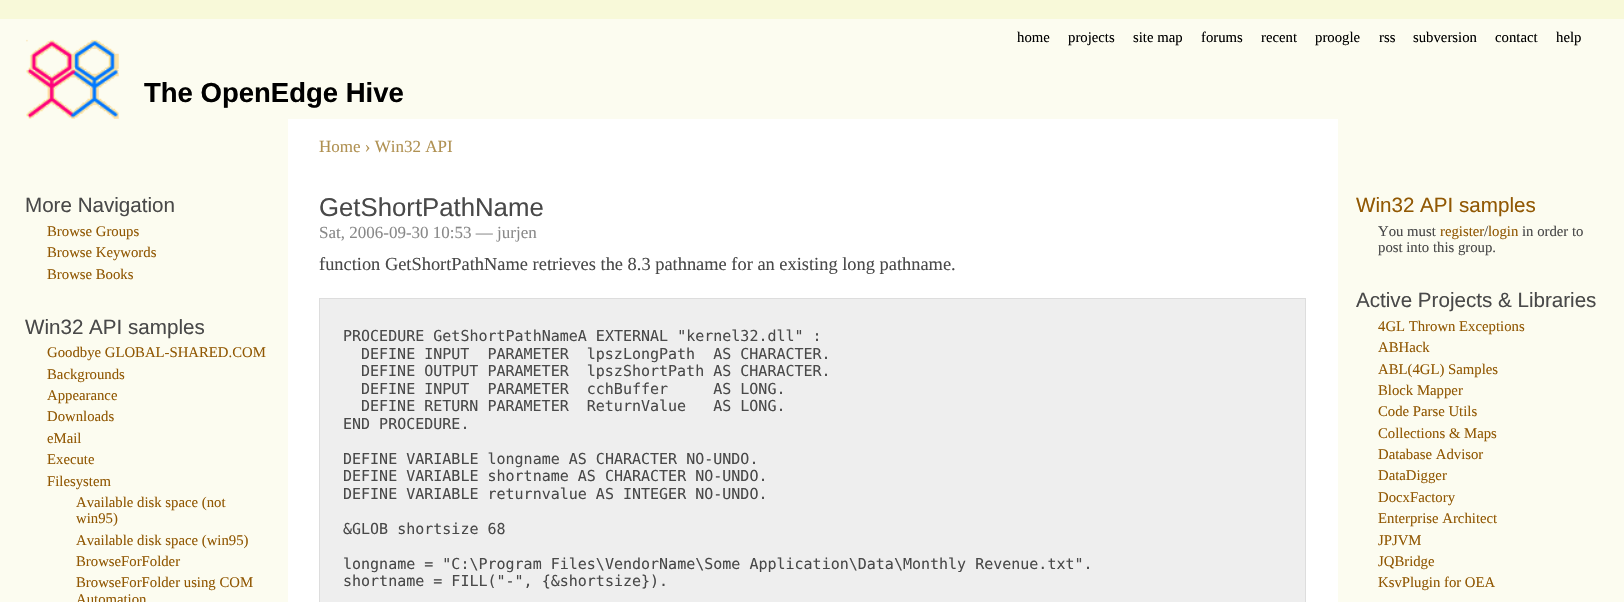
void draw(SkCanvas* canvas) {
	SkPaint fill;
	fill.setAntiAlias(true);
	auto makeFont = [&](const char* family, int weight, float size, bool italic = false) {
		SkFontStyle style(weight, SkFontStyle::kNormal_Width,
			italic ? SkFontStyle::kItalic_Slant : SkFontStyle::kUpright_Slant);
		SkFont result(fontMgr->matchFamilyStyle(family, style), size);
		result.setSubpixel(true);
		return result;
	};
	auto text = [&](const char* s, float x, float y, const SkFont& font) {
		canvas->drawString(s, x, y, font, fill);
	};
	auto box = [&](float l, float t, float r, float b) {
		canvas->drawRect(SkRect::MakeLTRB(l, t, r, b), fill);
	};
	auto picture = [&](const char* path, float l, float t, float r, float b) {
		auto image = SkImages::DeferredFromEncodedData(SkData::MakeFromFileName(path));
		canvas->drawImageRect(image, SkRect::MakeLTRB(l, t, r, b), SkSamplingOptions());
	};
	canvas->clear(0xFFFCFCF0);
	fill.setColor(0xFFF8F9D9);
	box(0, 0, 1624, 19);
	picture("image0.png", 26, 39, 119, 119);
	fill.setColor(0xFFFFFFFF);
	box(288, 119, 1338, 602);
	fill.setColor(0xFFEEEEEE);
	canvas->drawRect(SkRect::MakeLTRB(319.5f, 298.5f, 1305.5f, 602.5f), fill);
	fill.setStyle(SkPaint::kStroke_Style);
	fill.setStrokeWidth(1);
	fill.setColor(0xFFDDDDDD);
	canvas->drawRect(SkRect::MakeLTRB(319.5f, 298.5f, 1305.5f, 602.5f), fill);
	auto font1 = makeFont("Liberation Serif", 400, 14.75f);
	fill.setStyle(SkPaint::kFill_Style);
	fill.setColor(0xFF000000);
	text("home", 1017, 42, font1);
	text("projects", 1068, 42, font1);
	text("site map", 1133, 42, font1);
	text("forums", 1201, 42, font1);
	text("recent", 1261, 42, font1);
	text("proogle", 1315, 42, font1);
	text("rss", 1379, 42, font1);
	text("subversion", 1413, 42, font1);
	text("contact", 1495, 42, font1);
	text("help", 1556, 42, font1);
	auto font2 = makeFont("Liberation Sans", 700, 27.5f);
	text("The OpenEdge Hive", 144, 102, font2);
	auto font3 = makeFont("Liberation Sans", 400, 20.6f);
	fill.setColor(0xFF494949);
	text("More Navigation", 25, 212, font3);
	fill.setColor(0xFF915803);
	text("Browse Groups", 47, 236, font1);
	text("Browse Keywords", 47, 257, font1);
	text("Browse Books", 47, 279, font1);
	fill.setColor(0xFF494949);
	text("Win32 API samples", 25, 334, font3);
	fill.setColor(0xFF915803);
	text("Goodbye GLOBAL-SHARED.COM", 47, 357, font1);
	text("Backgrounds", 47, 379, font1);
	text("Appearance", 47, 400, font1);
	text("Downloads", 47, 421, font1);
	text("eMail", 47, 443, font1);
	text("Execute", 47, 464, font1);
	text("Filesystem", 47, 486, font1);
	text("Available disk space (not", 76, 507, font1);
	text("win95)", 76, 523, font1);
	text("Available disk space (win95)", 76, 545, font1);
	text("BrowseForFolder", 76, 566, font1);
	text("BrowseForFolder using COM", 76, 587, font1);
	text("Automation", 76, 604, font1);
	auto font4 = makeFont("Liberation Serif", 400, 17);
	fill.setColor(0xFFB09152);
	text("Home › Win32 API", 319, 152, font4);
	auto font5 = makeFont("Liberation Sans", 400, 25.75f);
	fill.setColor(0xFF494949);
	text("GetShortPathName", 319, 216, font5);
	fill.setColor(0xFF898989);
	text("Sat, 2006-09-30 10:53 — jurjen", 319, 238, font4);
	auto font6 = makeFont("Liberation Serif", 400, 18.4f);
	fill.setColor(0xFF494949);
	text("function GetShortPathName retrieves the 8.3 pathname for an existing long pathname.", 319, 270, font6);
	auto font7 = makeFont("DejaVu Sans Mono", 400, 15);
	text("PROCEDURE GetShortPathNameA EXTERNAL \"kernel32.dll\" :", 343, 341, font7);
	text("DEFINE INPUT  PARAMETER  lpszLongPath  AS CHARACTER.", 361, 359, font7);
	text("DEFINE OUTPUT PARAMETER  lpszShortPath AS CHARACTER.", 361, 376, font7);
	text("DEFINE INPUT  PARAMETER  cchBuffer     AS LONG.", 361, 394, font7);
	text("DEFINE RETURN PARAMETER  ReturnValue   AS LONG.", 361, 411, font7);
	text("END PROCEDURE.", 343, 429, font7);
	text("DEFINE VARIABLE longname AS CHARACTER NO-UNDO.", 343, 464, font7);
	text("DEFINE VARIABLE shortname AS CHARACTER NO-UNDO.", 343, 481, font7);
	text("DEFINE VARIABLE returnvalue AS INTEGER NO-UNDO.", 343, 499, font7);
	text("&GLOB shortsize 68", 343, 534, font7);
	text("longname = \"C:\\Program Files\\VendorName\\Some Application\\Data\\Monthly Revenue.txt\".", 343, 569, font7);
	text("shortname = FILL(\"-\", {&shortsize}).", 343, 586, font7);
	fill.setColor(0xFF915803);
	text("Win32 API samples", 1356, 212, font3);
	fill.setColor(0xFF494949);
	text("You must", 1378, 236, font1);
	fill.setColor(0xFF915803);
	text("register", 1440, 236, font1);
	fill.setColor(0xFF494949);
	text("/", 1484, 236, font1);
	fill.setColor(0xFF915803);
	text("login", 1488, 236, font1);
	fill.setColor(0xFF494949);
	text("in order to", 1522, 236, font1);
	text("post into this group.", 1378, 252, font1);
	text("Active Projects & Libraries", 1356, 307, font3);
	fill.setColor(0xFF915803);
	text("4GL Thrown Exceptions", 1378, 331, font1);
	text("ABHack", 1378, 352, font1);
	text("ABL(4GL) Samples", 1378, 374, font1);
	text("Block Mapper", 1378, 395, font1);
	text("Code Parse Utils", 1378, 416, font1);
	text("Collections & Maps", 1378, 438, font1);
	text("Database Advisor", 1378, 459, font1);
	text("DataDigger", 1378, 480, font1);
	text("DocxFactory", 1378, 502, font1);
	text("Enterprise Architect", 1378, 523, font1);
	text("JPJVM", 1378, 545, font1);
	text("JQBridge", 1378, 566, font1);
	text("KsvPlugin for OEA", 1378, 587, font1);
}
